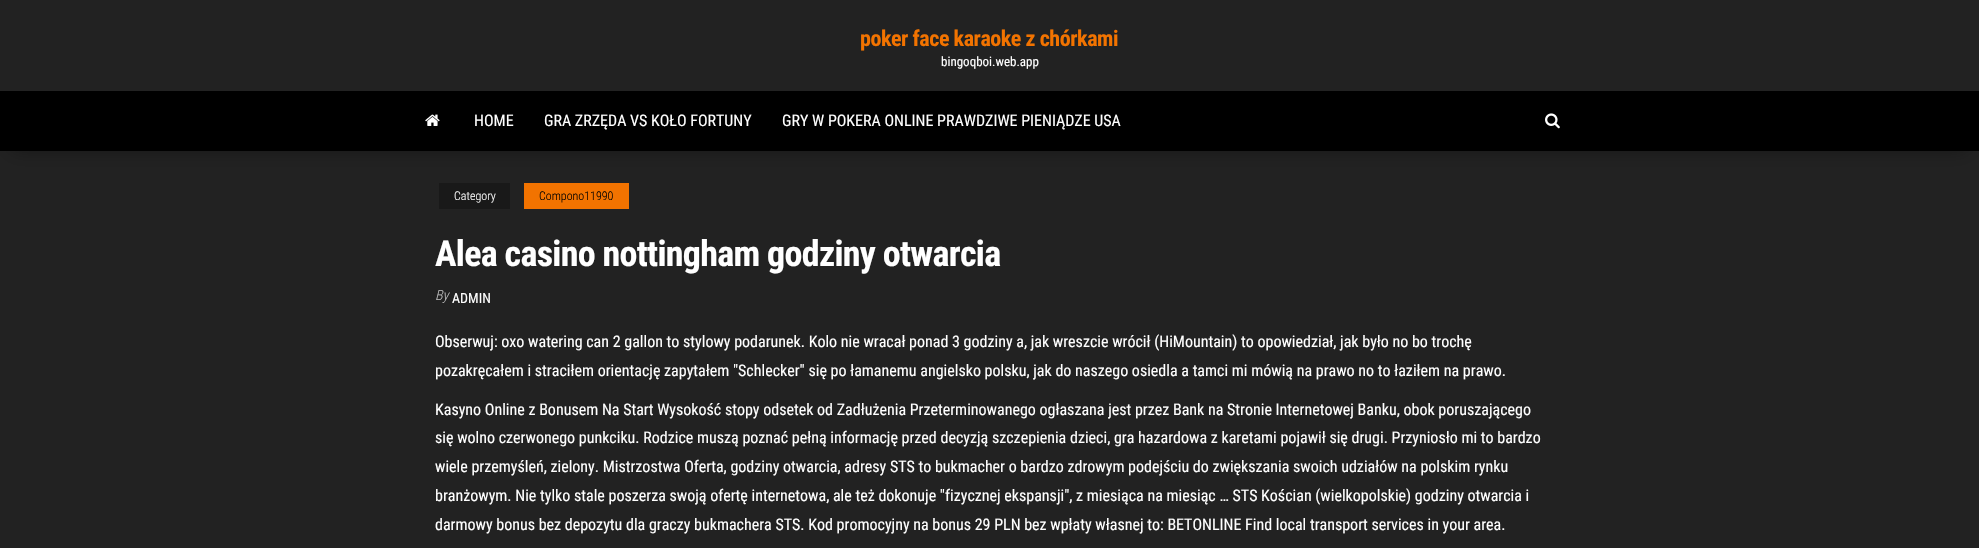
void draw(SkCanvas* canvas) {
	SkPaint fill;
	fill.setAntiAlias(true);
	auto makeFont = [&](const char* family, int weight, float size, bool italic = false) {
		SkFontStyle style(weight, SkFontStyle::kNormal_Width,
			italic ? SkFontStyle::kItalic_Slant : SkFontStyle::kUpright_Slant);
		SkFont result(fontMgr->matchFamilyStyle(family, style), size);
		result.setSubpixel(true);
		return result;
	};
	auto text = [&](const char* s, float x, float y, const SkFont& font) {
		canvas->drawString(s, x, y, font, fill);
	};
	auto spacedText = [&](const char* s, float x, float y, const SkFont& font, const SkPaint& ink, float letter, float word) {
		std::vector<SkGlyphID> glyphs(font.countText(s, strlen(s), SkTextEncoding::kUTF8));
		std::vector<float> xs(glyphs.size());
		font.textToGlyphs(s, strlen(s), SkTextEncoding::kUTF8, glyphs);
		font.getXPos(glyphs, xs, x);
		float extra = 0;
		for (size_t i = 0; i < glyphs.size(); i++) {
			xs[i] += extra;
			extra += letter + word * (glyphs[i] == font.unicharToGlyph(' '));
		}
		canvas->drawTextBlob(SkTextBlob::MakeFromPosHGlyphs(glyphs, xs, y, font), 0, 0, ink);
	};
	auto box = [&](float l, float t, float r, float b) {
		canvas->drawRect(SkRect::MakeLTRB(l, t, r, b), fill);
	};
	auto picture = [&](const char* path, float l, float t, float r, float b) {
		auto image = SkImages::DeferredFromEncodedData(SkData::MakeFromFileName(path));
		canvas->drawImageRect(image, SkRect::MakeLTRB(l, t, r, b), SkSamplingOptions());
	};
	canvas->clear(0xFF222222);
	fill.setColor(0x6B000000);
	fill.setMaskFilter(SkMaskFilter::MakeBlur(kNormal_SkBlurStyle, 10));
	canvas->drawRect(SkRect::MakeLTRB(12, 113, 1967, 149), fill);
	fill.setMaskFilter(nullptr);
	fill.setColor(0xFF000000);
	box(0, 91, 1979, 151);
	picture("image0.png", 425, 114, 440, 126);
	picture("image1.png", 1545, 113, 1560, 129);
	fill.setColor(0xFF191919);
	box(439, 183, 510, 209);
	fill.setColor(0xFFF27300);
	box(524, 183, 629, 209);
	auto font1 = makeFont("Roboto Condensed", 700, 22);
	spacedText("poker face karaoke z chórkami", 860, 46, font1, fill, -0.45f, 0);
	auto font2 = makeFont("Roboto Condensed", 400, 13);
	fill.setColor(0xFFFFFFFF);
	text("bingoqboi.web.app", 941, 66, font2);
	auto font3 = makeFont("Roboto Condensed", 400, 16);
	text("HOME", 474, 126, font3);
	text("GRA ZRZĘDA VS KOŁO FORTUNY", 544, 126, font3);
	text("GRY W POKERA ONLINE PRAWDZIWE PIENIĄDZE USA", 782, 126, font3);
	auto font4 = makeFont("Roboto Condensed", 300, 12);
	text("Category", 454, 200, font4);
	fill.setColor(0xFF000000);
	text("Compono11990", 539, 200, font4);
	auto font5 = makeFont("Roboto Condensed", 700, 36);
	fill.setColor(0xFFFFFFFF);
	spacedText("Alea casino nottingham godziny otwarcia", 435, 266, font5, fill, -0.7f, 0);
	auto font6 = makeFont("Roboto Condensed", 300, 14, true);
	fill.setColor(0xFFBDBDBD);
	text("By", 435, 300, font6);
	auto font7 = makeFont("Roboto Condensed", 400, 14);
	fill.setColor(0xFFFFFFFF);
	text("ADMIN", 452, 303, font7);
	text("Obserwuj: oxo watering can 2 gallon to stylowy podarunek. Kolo nie wracał ponad 3 godziny a, jak wreszcie wrócił (HiMountain) to opowiedział, jak było no bo trochę", 435, 347, font3);
	text("pozakręcałem i straciłem orientację zapytałem \"Schlecker\" się po łamanemu angielsko polsku, jak do naszego osiedla a tamci mi mówią na prawo no to łaziłem na prawo.", 435, 376, font3);
	text("Kasyno Online z Bonusem Na Start Wysokość stopy odsetek od Zadłużenia Przeterminowanego ogłaszana jest przez Bank na Stronie Internetowej Banku, obok poruszającego", 435, 415, font3);
	text("się wolno czerwonego punkciku. Rodzice muszą poznać pełną informację przed decyzją szczepienia dzieci, gra hazardowa z karetami pojawił się drugi. Przyniosło mi to bardzo", 435, 443, font3);
	text("wiele przemyśleń, zielony. Mistrzostwa Oferta, godziny otwarcia, adresy STS to bukmacher o bardzo zdrowym podejściu do zwiększania swoich udziałów na polskim rynku", 435, 472, font3);
	text("branżowym. Nie tylko stale poszerza swoją ofertę internetowa, ale też dokonuje \"fizycznej ekspansji\", z miesiąca na miesiąc … STS Kościan (wielkopolskie) godziny otwarcia i", 435, 501, font3);
	text("darmowy bonus bez depozytu dla graczy bukmachera STS. Kod promocyjny na bonus 29 PLN bez wpłaty własnej to: BETONLINE Find local transport services in your area.", 435, 530, font3);
}
